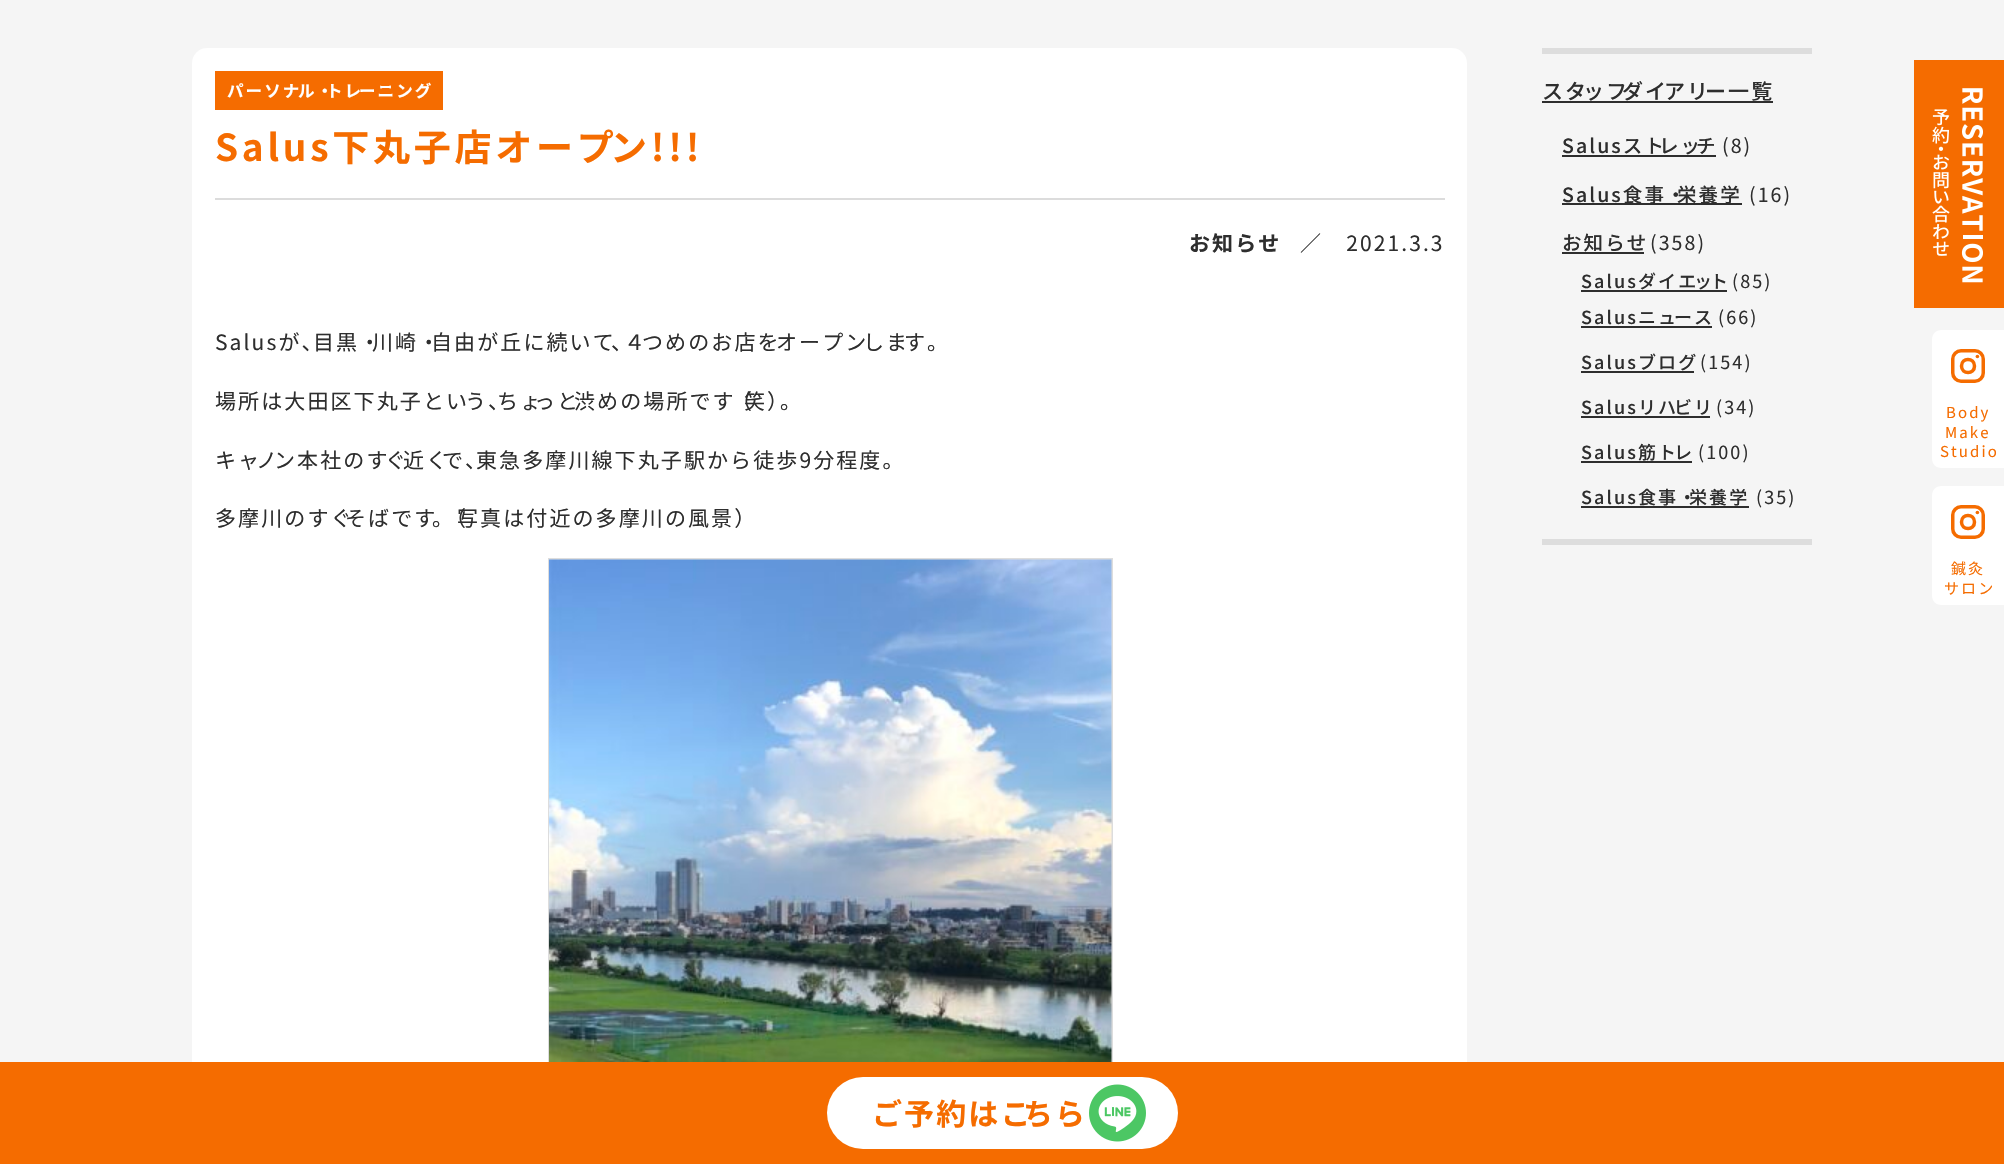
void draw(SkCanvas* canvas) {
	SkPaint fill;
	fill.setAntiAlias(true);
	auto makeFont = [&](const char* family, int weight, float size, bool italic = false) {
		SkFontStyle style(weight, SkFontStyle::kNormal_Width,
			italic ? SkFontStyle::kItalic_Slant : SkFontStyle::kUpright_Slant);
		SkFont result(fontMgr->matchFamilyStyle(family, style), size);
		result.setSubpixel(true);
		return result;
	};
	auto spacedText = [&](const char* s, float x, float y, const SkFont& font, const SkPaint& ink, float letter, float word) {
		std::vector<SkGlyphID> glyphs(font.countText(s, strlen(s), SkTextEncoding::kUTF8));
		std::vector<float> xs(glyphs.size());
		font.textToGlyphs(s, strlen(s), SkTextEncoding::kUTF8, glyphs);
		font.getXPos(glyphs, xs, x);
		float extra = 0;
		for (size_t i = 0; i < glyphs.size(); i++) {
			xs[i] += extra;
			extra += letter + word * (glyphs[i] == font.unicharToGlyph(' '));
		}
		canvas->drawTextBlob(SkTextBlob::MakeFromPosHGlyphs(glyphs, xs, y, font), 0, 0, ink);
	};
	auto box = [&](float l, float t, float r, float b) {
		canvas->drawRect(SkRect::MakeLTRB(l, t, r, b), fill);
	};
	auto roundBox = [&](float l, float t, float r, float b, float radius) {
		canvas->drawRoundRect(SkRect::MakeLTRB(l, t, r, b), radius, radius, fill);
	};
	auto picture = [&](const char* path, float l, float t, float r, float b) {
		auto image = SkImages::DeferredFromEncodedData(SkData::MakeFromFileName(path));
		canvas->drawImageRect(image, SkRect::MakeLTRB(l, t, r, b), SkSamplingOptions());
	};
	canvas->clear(0xFFF5F5F5);
	fill.setColor(0xFFFFFFFF);
	roundBox(192, 48, 1467, 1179, 15);
	fill.setColor(0xFFF56C00);
	box(215, 71, 443, 110);
	fill.setColor(0xFFDCDCDC);
	box(215, 198, 1445, 200);
	fill.setStyle(SkPaint::kStroke_Style);
	fill.setStrokeWidth(2);
	fill.setColor(0xFFDDDDDD);
	canvas->drawRect(SkRect::MakeLTRB(549, 559, 1112, 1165), fill);
	picture("image0.png", 549, 559, 1112, 1062);
	fill.setStyle(SkPaint::kFill_Style);
	box(1542, 48, 1812, 54);
	box(1542, 539, 1812, 545);
	fill.setColor(0xFF2E2E2E);
	box(1542, 101, 1773, 103);
	box(1562, 155, 1716, 157);
	box(1562, 203, 1742, 205);
	box(1562, 252, 1644, 254);
	box(1581, 290, 1727, 292);
	box(1581, 326, 1712, 328);
	box(1581, 371, 1694, 373);
	box(1581, 416, 1710, 418);
	box(1581, 461, 1692, 463);
	box(1581, 506, 1749, 508);
	fill.setColor(0xFFF56C00);
	box(1914, 60, 2004, 308);
	picture("image1.png", 1932, 88, 1983, 283);
	fill.setColor(0xFFFFFFFF);
	canvas->drawPath(SkPathBuilder().moveTo(1941, 330).lineTo(2004, 330).lineTo(2004, 468).lineTo(1941, 468).cubicTo(1936, 468, 1932, 464, 1932, 459).lineTo(1932, 339).cubicTo(1932, 334, 1936, 330, 1941, 330).close().detach(), fill);
	fill.setStyle(SkPaint::kStroke_Style);
	fill.setStrokeWidth(3.5f);
	fill.setColor(0xFFF56C00);
	canvas->drawRoundRect(SkRect::MakeLTRB(1952.75f, 350.75f, 1983.25f, 381.25f), 8.25f, 8.25f, fill);
	canvas->drawPath(SkPathBuilder().moveTo(1961.5f, 366).cubicTo(1961.5f, 357, 1974.5f, 357.5f, 1974.5f, 366).cubicTo(1974.5f, 375, 1961.5f, 374.5f, 1961.5f, 366).close().detach(), fill);
	fill.setStyle(SkPaint::kFill_Style);
	canvas->drawCircle(1977.4f, 356.5f, 1.8f, fill);
	fill.setColor(0xFFFFFFFF);
	canvas->drawPath(SkPathBuilder().moveTo(1941, 486).lineTo(2004, 486).lineTo(2004, 605).lineTo(1941, 605).cubicTo(1936, 605, 1932, 601, 1932, 596).lineTo(1932, 495).cubicTo(1932, 490, 1936, 486, 1941, 486).close().detach(), fill);
	fill.setStyle(SkPaint::kStroke_Style);
	fill.setColor(0xFFF56C00);
	canvas->drawRoundRect(SkRect::MakeLTRB(1952.75f, 506.75f, 1983.25f, 537.25f), 8.25f, 8.25f, fill);
	canvas->drawPath(SkPathBuilder().moveTo(1961.5f, 522).cubicTo(1961.5f, 513, 1974.5f, 513.5f, 1974.5f, 522).cubicTo(1974.5f, 531, 1961.5f, 530.5f, 1961.5f, 522).close().detach(), fill);
	fill.setStyle(SkPaint::kFill_Style);
	canvas->drawCircle(1977.4f, 512.5f, 1.8f, fill);
	box(0, 1062, 2004, 1164);
	fill.setColor(0xFFFFFFFF);
	roundBox(827, 1077, 1178, 1149, 36);
	picture("image2.png", 1089, 1084, 1146, 1142);
	auto font1 = makeFont("Noto Sans JP", 700, 16.5f);
	spacedText("パーソナ", 227, 97, font1, fill, 2.1f, 0);
	spacedText("ル・", 298, 97, font1, fill, 2.1f, 0);
	spacedText("トレ", 326, 97, font1, fill, 2.1f, 0);
	spacedText("ーニング", 359, 97, font1, fill, 2.1f, 0);
	auto font2 = makeFont("Noto Sans JP", 700, 37);
	fill.setColor(0xFFF56C00);
	spacedText("Salus下丸子店オープ", 215, 161, font2, fill, 3.75f, 0);
	spacedText("ン!!!", 610, 161, font2, fill, 3.75f, 0);
	auto font3 = makeFont("Noto Sans JP", 700, 21);
	fill.setColor(0xFF2E2E2E);
	spacedText("お知らせ", 1189, 251, font3, fill, 2.1f, 0);
	auto font4 = makeFont("Noto Sans JP", 400, 21);
	spacedText("／　2021.3.3", 1300, 251, font4, fill, 2.1f, 0);
	spacedText("Salusが、", 215, 350, font4, fill, 2.1f, 0);
	spacedText("目黒・", 313, 350, font4, fill, 2.1f, 0);
	spacedText("川崎・", 372, 350, font4, fill, 2.1f, 0);
	spacedText("自由が丘に続いて", 431, 350, font4, fill, 2.1f, 0);
	spacedText("、", 611, 350, font4, fill, 2.1f, 0);
	spacedText("４", 624, 350, font4, fill, 2.1f, 0);
	spacedText("つめのお店を", 642, 350, font4, fill, 2.1f, 0);
	spacedText("オープン", 776, 350, font4, fill, 2.1f, 0);
	spacedText("しま", 863, 350, font4, fill, 2.1f, 0);
	spacedText("す。", 904, 350, font4, fill, 2.1f, 0);
	spacedText("場所は大田区下丸子とい", 215, 409, font4, fill, 2.1f, 0);
	spacedText("う、", 465, 409, font4, fill, 2.1f, 0);
	spacedText("ちょ", 497, 409, font4, fill, 2.1f, 0);
	spacedText("っと", 534, 409, font4, fill, 2.1f, 0);
	spacedText("渋めの場所です", 574, 409, font4, fill, 2.1f, 0);
	spacedText("（", 731, 409, font4, fill, 2.1f, 0);
	spacedText("笑）", 744, 409, font4, fill, 2.1f, 0);
	spacedText("。", 780, 409, font4, fill, 2.1f, 0);
	spacedText("キャ", 215, 468, font4, fill, 2.1f, 0);
	spacedText("ノ", 256, 468, font4, fill, 2.1f, 0);
	spacedText("ン本社のす", 274, 468, font4, fill, 2.1f, 0);
	spacedText("ぐ", 385, 468, font4, fill, 2.1f, 0);
	spacedText("近く", 403, 468, font4, fill, 2.1f, 0);
	spacedText("で、", 442, 468, font4, fill, 2.1f, 0);
	spacedText("東急多摩川線下丸子駅から徒歩9分程度。", 476, 468, font4, fill, 2.1f, 0);
	spacedText("多摩川のすぐ", 215, 526, font4, fill, 2.1f, 0);
	spacedText("そばです", 345, 526, font4, fill, 2.1f, 0);
	spacedText("。", 432, 526, font4, fill, 2.1f, 0);
	spacedText("（", 445, 526, font4, fill, 2.1f, 0);
	spacedText("写真は付近の多摩川の風景）", 457, 526, font4, fill, 2.1f, 0);
	auto font5 = makeFont("Noto Sans JP", 500, 21);
	spacedText("スタ", 1542, 99, font5, fill, 2.1f, 0);
	spacedText("ッフ", 1583, 99, font5, fill, 2.1f, 0);
	spacedText("ダイ", 1622, 99, font5, fill, 2.1f, 0);
	spacedText("アリ", 1664, 99, font5, fill, 2.1f, 0);
	spacedText("ー一覧", 1705, 99, font5, fill, 2.1f, 0);
	auto font6 = makeFont("Noto Sans JP", 500, 19.5f);
	spacedText("Salusスト", 1562, 153, font6, fill, 2.1f, 0);
	spacedText("レッ", 1659, 153, font6, fill, 2.1f, 0);
	spacedText("チ", 1696, 153, font6, fill, 2.1f, 0);
	auto font7 = makeFont("Noto Sans JP", 400, 19.5f);
	spacedText("(8)", 1722, 153, font7, fill, 2.1f, 0);
	spacedText("Salus食事・", 1562, 202, font6, fill, 2.1f, 0);
	spacedText("栄養学", 1677, 202, font6, fill, 2.1f, 0);
	spacedText("(16)", 1749, 202, font7, fill, 2.1f, 0);
	spacedText("お知らせ", 1562, 250, font6, fill, 2.1f, 0);
	spacedText("(358)", 1650, 250, font7, fill, 2.1f, 0);
	auto font8 = makeFont("Noto Sans JP", 500, 18);
	spacedText("Salusダイエ", 1581, 288, font8, fill, 2.1f, 0);
	spacedText("ッ", 1694, 288, font8, fill, 2.1f, 0);
	spacedText("ト", 1710, 288, font8, fill, 2.1f, 0);
	auto font9 = makeFont("Noto Sans JP", 400, 18);
	spacedText("(85)", 1732, 288, font9, fill, 2.1f, 0);
	spacedText("Salusニュ", 1581, 324, font8, fill, 2.1f, 0);
	spacedText("ース", 1674, 324, font8, fill, 2.1f, 0);
	spacedText("(66)", 1718, 324, font9, fill, 2.1f, 0);
	spacedText("Salusブログ", 1581, 369, font8, fill, 2.1f, 0);
	spacedText("(154)", 1700, 369, font9, fill, 2.1f, 0);
	spacedText("Salusリハ", 1581, 414, font8, fill, 2.1f, 0);
	spacedText("ビリ", 1674, 414, font8, fill, 2.1f, 0);
	spacedText("(34)", 1716, 414, font9, fill, 2.1f, 0);
	spacedText("Salus筋ト", 1581, 459, font8, fill, 2.1f, 0);
	spacedText("レ", 1674, 459, font8, fill, 2.1f, 0);
	spacedText("(100)", 1698, 459, font9, fill, 2.1f, 0);
	spacedText("Salus食事・", 1581, 504, font8, fill, 2.1f, 0);
	spacedText("栄養学", 1689, 504, font8, fill, 2.1f, 0);
	spacedText("(35)", 1756, 504, font9, fill, 2.1f, 0);
	auto font10 = makeFont("Noto Sans JP", 400, 15);
	fill.setColor(0xFFF56C00);
	spacedText("Body", 1946, 418, font10, fill, 2.1f, 0);
	spacedText("Make", 1945, 438, font10, fill, 2.1f, 0);
	spacedText("Studio", 1940, 457, font10, fill, 2.1f, 0);
	spacedText("鍼灸", 1951, 574, font10, fill, 2.1f, 0);
	spacedText("サロン", 1944, 594, font10, fill, 2.1f, 0);
	auto font11 = makeFont("Noto Sans JP", 700, 30);
	spacedText("ご予約はこ", 872, 1125, font11, fill, 2.1f, 0);
	spacedText("ちら", 1023, 1125, font11, fill, 2.1f, 0);
}
